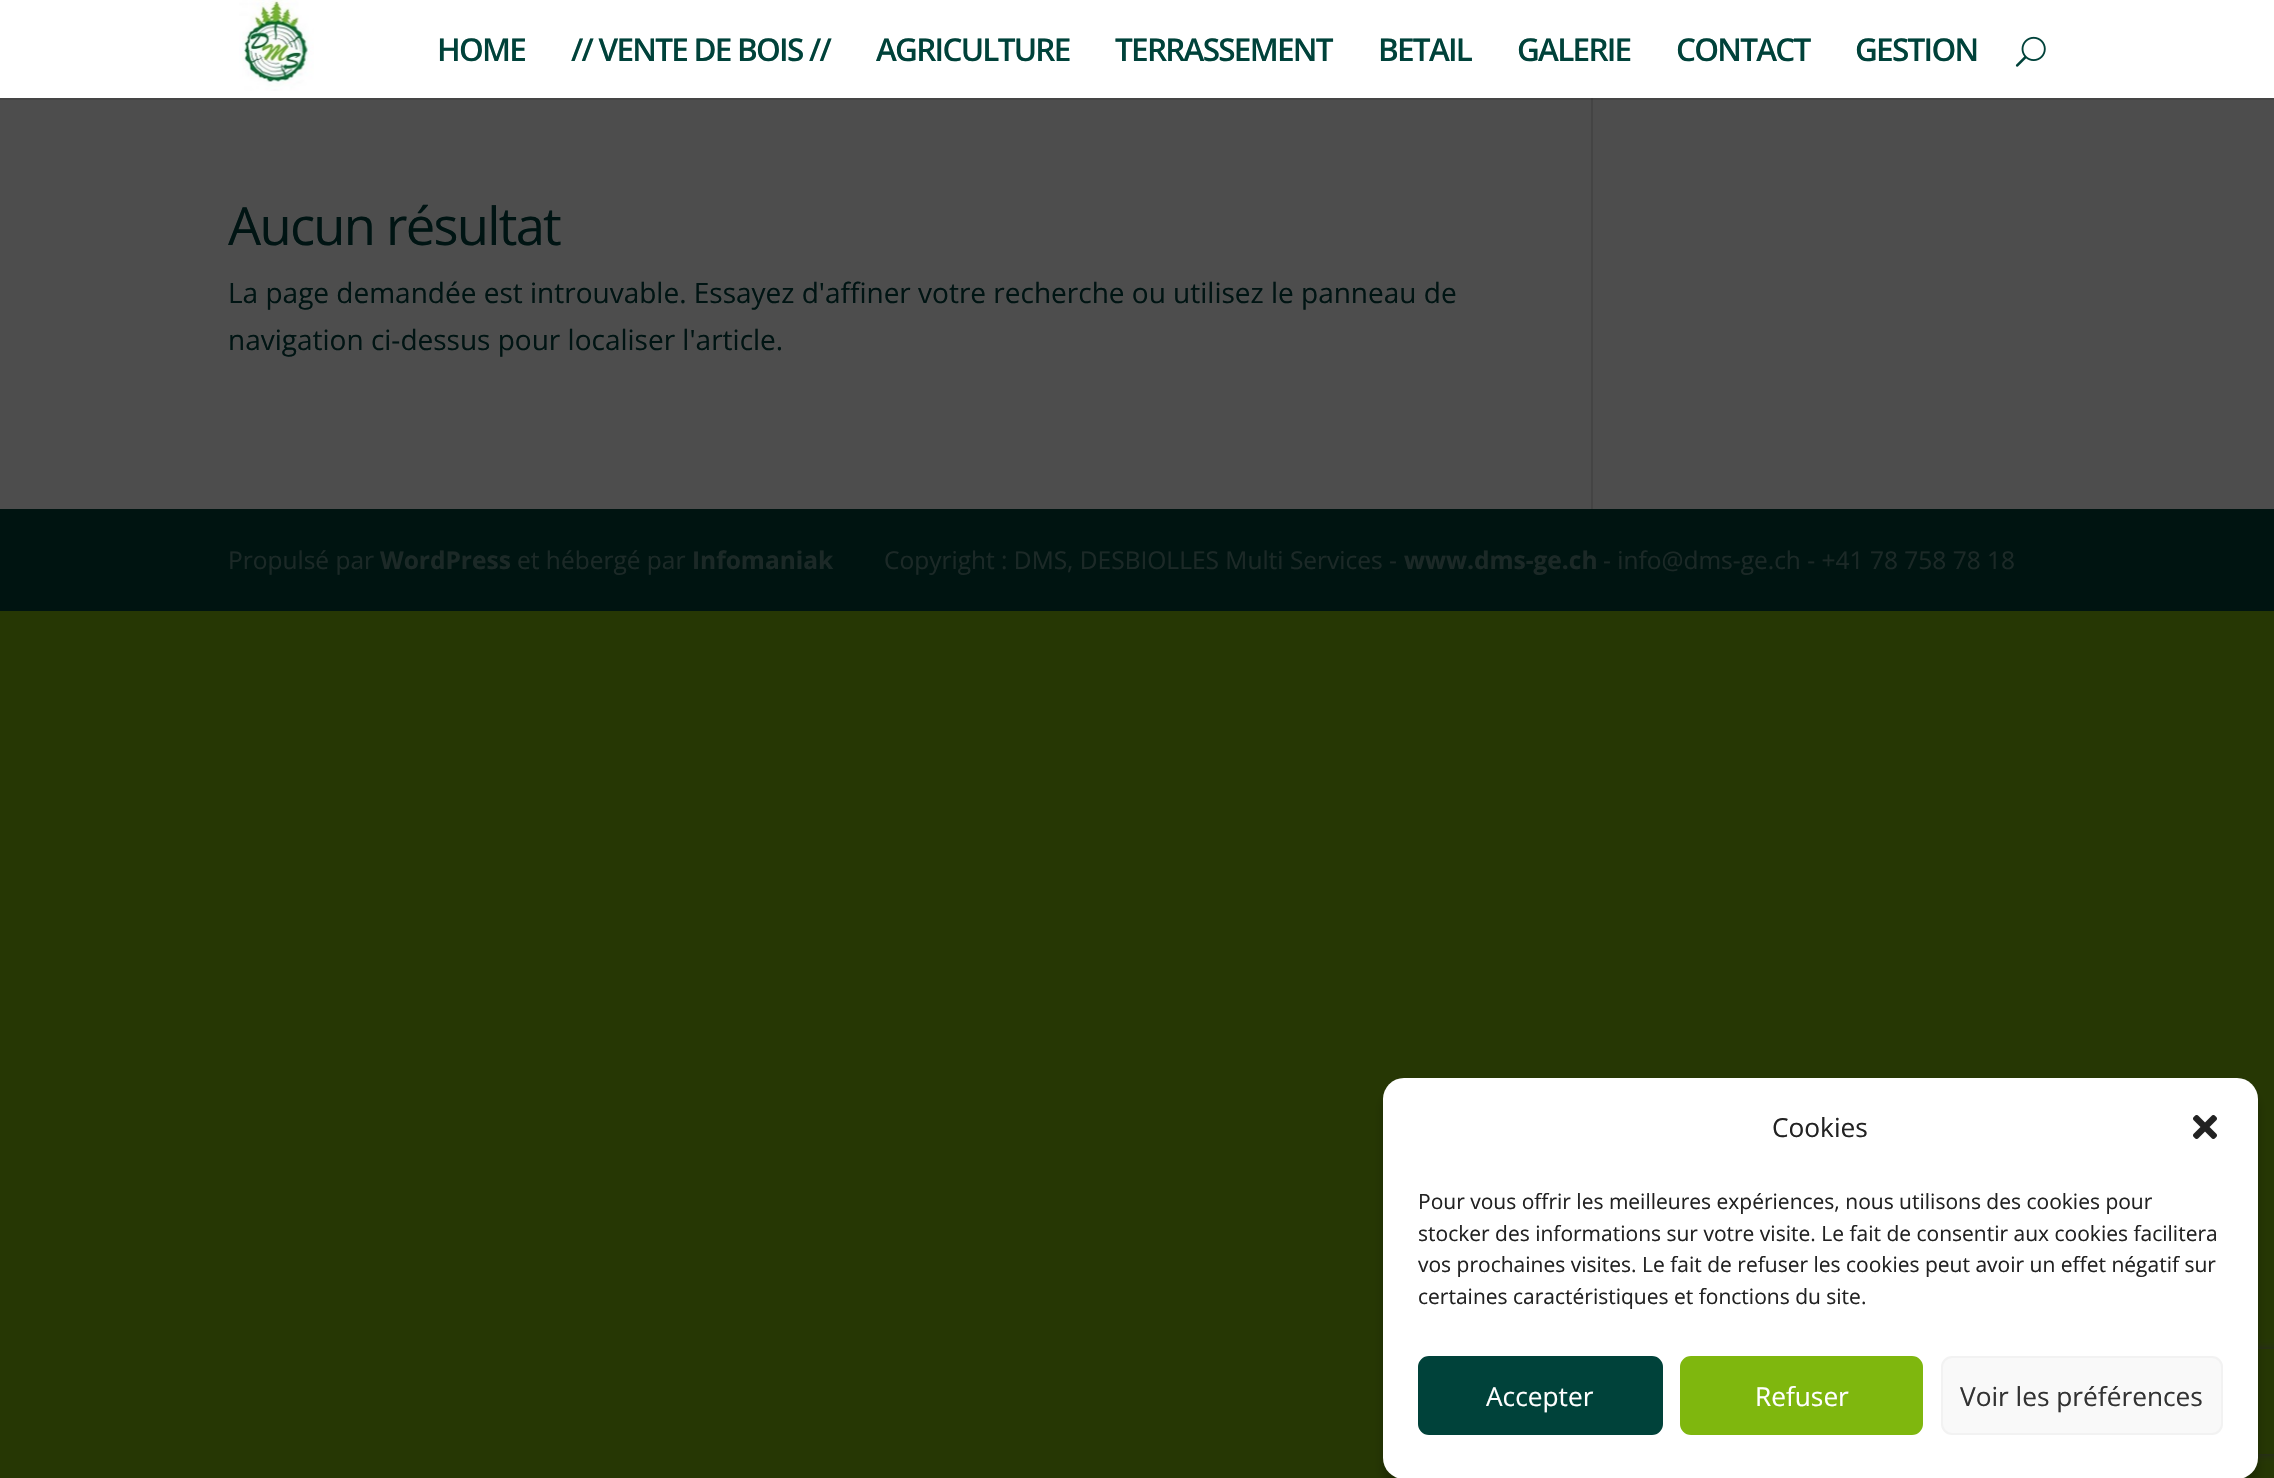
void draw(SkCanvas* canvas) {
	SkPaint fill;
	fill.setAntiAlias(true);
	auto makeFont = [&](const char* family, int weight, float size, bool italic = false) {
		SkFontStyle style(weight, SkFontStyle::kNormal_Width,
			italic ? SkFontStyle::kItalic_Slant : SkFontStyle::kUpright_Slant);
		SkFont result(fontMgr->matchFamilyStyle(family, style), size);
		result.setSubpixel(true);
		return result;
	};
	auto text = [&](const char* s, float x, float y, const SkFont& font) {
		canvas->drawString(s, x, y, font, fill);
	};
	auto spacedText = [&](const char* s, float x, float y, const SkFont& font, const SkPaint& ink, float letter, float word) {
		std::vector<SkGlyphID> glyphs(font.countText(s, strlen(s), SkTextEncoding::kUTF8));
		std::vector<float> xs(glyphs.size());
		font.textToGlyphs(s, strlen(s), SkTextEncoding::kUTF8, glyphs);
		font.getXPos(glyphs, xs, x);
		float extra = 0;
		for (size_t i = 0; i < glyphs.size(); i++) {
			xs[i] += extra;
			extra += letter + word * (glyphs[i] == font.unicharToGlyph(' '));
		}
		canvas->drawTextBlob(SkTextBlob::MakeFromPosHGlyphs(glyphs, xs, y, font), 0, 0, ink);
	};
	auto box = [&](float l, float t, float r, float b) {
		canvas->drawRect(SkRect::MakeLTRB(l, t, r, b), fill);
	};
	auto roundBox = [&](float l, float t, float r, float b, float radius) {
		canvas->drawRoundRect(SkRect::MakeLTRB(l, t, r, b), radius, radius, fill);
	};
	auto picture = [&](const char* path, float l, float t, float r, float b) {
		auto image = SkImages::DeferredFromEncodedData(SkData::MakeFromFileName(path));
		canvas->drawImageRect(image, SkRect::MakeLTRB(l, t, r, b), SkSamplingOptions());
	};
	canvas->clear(0xFF263704);
	fill.setColor(0xFFFFFFFF);
	box(0, 0, 2274, 98);
	picture("image0.png", 239, 0, 314, 91);
	picture("image1.png", 2015, 36, 2046, 67);
	fill.setColor(0xFF4D4D4D);
	box(0, 100, 2274, 509);
	fill.setColor(0xFF454545);
	box(0, 98, 2274, 100);
	fill.setColor(0xFF444444);
	box(1591, 98, 1593, 509);
	fill.setColor(0xFF3D3D3D);
	box(1591, 98, 1593, 100);
	fill.setColor(0xFF001411);
	box(0, 509, 2274, 611);
	fill.setColor(0x3B000000);
	fill.setMaskFilter(SkMaskFilter::MakeBlur(kNormal_SkBlurStyle, 5));
	canvas->drawRoundRect(SkRect::MakeLTRB(1383, 1089, 2258, 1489), 21, 21, fill);
	fill.setMaskFilter(nullptr);
	canvas->save();
	canvas->clipPath(SkPathBuilder(SkPathFillType::kEvenOdd).moveTo(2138, 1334).lineTo(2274, 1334).lineTo(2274, 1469).lineTo(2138, 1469).close().moveTo(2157, 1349).lineTo(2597, 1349).cubicTo(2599, 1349, 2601, 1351, 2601, 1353).lineTo(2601, 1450).cubicTo(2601, 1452, 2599, 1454, 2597, 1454).lineTo(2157, 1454).cubicTo(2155, 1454, 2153, 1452, 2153, 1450).lineTo(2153, 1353).cubicTo(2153, 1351, 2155, 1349, 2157, 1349).close().detach(), true);
	fill.setColor(0xFF262626);
	fill.setMaskFilter(SkMaskFilter::MakeBlur(kNormal_SkBlurStyle, 4.5f));
	canvas->drawRoundRect(SkRect::MakeLTRB(2153, 1349, 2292, 1454), 4, 4, fill);
	fill.setMaskFilter(nullptr);
	canvas->restore();
	fill.setColor(0xFFFFFFFF);
	roundBox(1383, 1078, 2258, 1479, 21);
	picture("image2.png", 2193, 1115, 2217, 1139);
	fill.setColor(0xFF00423A);
	canvas->drawRoundRect(SkRect::MakeLTRB(1419, 1357, 1662, 1434), 10, 10, fill);
	fill.setStyle(SkPaint::kStroke_Style);
	fill.setStrokeWidth(2);
	canvas->drawRoundRect(SkRect::MakeLTRB(1419, 1357, 1662, 1434), 10, 10, fill);
	fill.setStyle(SkPaint::kFill_Style);
	fill.setColor(0xFF7FB70E);
	canvas->drawRoundRect(SkRect::MakeLTRB(1681, 1357, 1922, 1434), 10, 10, fill);
	fill.setStyle(SkPaint::kStroke_Style);
	canvas->drawRoundRect(SkRect::MakeLTRB(1681, 1357, 1922, 1434), 10, 10, fill);
	fill.setStyle(SkPaint::kFill_Style);
	fill.setColor(0xFFF9F9F9);
	canvas->drawRoundRect(SkRect::MakeLTRB(1942, 1357, 2222, 1434), 10, 10, fill);
	fill.setStyle(SkPaint::kStroke_Style);
	fill.setColor(0xFFF2F2F2);
	canvas->drawRoundRect(SkRect::MakeLTRB(1942, 1357, 2222, 1434), 10, 10, fill);
	auto font1 = makeFont("Open Sans", 600, 31.5f);
	fill.setStyle(SkPaint::kFill_Style);
	fill.setColor(0xFF00423A);
	spacedText("HOME", 437, 61, font1, fill, -1.75f, 0);
	spacedText("// VENTE DE BOIS //", 571, 61, font1, fill, -1.75f, 0);
	spacedText("AGRICULTURE", 876, 61, font1, fill, -1.75f, 0);
	spacedText("TERRASSEMENT", 1115, 61, font1, fill, -1.75f, 0);
	spacedText("BETAIL", 1378, 61, font1, fill, -1.75f, 0);
	spacedText("GALERIE", 1517, 61, font1, fill, -1.75f, 0);
	spacedText("CONTACT", 1676, 61, font1, fill, -1.75f, 0);
	spacedText("GESTION", 1855, 61, font1, fill, -1.75f, 0);
	auto font2 = makeFont("Open Sans", 400, 52.5f);
	fill.setColor(0xFF001413);
	spacedText("Aucun résultat", 228, 245, font2, fill, -1.75f, 0);
	auto font3 = makeFont("Open Sans", 400, 28);
	text("La page demandée est introuvable. Essayez d'affiner votre recherche ou utilisez le panneau de", 228, 303, font3);
	text("navigation ci-dessus pour localiser l'article.", 228, 350, font3);
	auto font4 = makeFont("Open Sans", 400, 24.5f);
	fill.setColor(0xFF1C2927);
	text("Propulsé par", 228, 569, font4);
	auto font5 = makeFont("Open Sans", 700, 24.5f);
	text("WordPress", 380, 569, font5);
	text("et hébergé par", 517, 569, font4);
	text("Infomaniak", 692, 569, font5);
	text("Copyright : DMS, DESBIOLLES Multi Services -", 884, 569, font4);
	text("www.dms-ge.ch", 1404, 569, font5);
	text("- info@dms-ge.ch - +41 78 758 78 18", 1603, 569, font4);
	auto font6 = makeFont("Open Sans", 400, 26.25f);
	fill.setColor(0xFF222222);
	text("Cookies", 1772, 1137, font6);
	auto font7 = makeFont("Open Sans", 400, 21);
	text("Pour vous offrir les meilleures expériences, nous utilisons des cookies pour", 1418, 1209, font7);
	text("stocker des informations sur votre visite. Le fait de consentir aux cookies facilitera", 1418, 1241, font7);
	text("vos prochaines visites. Le fait de refuser les cookies peut avoir un effet négatif sur", 1418, 1272, font7);
	text("certaines caractéristiques et fonctions du site.", 1418, 1304, font7);
	fill.setColor(0xFFFFFFFF);
	text("Accepter", 1486, 1406, font6);
	text("Refuser", 1755, 1406, font6);
	fill.setColor(0xFF333333);
	text("Voir les préférences", 1960, 1406, font6);
}
